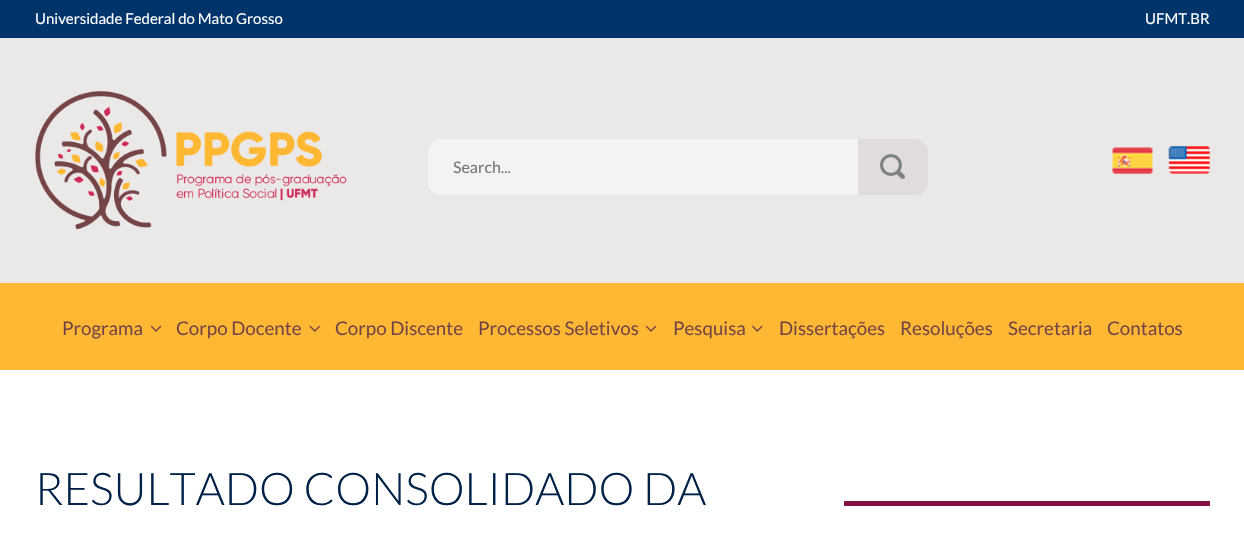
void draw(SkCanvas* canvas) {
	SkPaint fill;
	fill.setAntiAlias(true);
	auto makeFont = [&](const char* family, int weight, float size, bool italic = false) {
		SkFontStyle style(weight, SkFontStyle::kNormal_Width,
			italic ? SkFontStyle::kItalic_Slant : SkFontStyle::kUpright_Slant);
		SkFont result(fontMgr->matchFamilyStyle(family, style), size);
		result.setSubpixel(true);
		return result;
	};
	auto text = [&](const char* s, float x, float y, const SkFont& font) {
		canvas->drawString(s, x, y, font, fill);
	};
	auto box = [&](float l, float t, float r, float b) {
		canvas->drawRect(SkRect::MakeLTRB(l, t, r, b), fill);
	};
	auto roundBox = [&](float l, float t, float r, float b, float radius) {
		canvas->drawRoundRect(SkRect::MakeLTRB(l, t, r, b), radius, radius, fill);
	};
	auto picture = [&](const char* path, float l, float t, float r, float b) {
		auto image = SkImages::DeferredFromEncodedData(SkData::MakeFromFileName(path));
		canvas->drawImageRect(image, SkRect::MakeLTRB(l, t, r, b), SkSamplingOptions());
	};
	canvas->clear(0xFF00346A);
	fill.setColor(0xFFEBE8E8);
	box(0, 38, 1244, 283);
	picture("image0.png", 35, 91, 347, 230);
	fill.setColor(0xFFF4F3F3);
	roundBox(428, 139, 928, 195, 13);
	fill.setColor(0xFFDFDCDB);
	canvas->drawPath(SkPathBuilder().moveTo(858, 139).lineTo(915, 139).cubicTo(922, 139, 928, 145, 928, 152).lineTo(928, 182).cubicTo(928, 189, 922, 195, 915, 195).lineTo(858, 195).close().detach(), fill);
	picture("image1.png", 880, 154, 905, 179);
	picture("image2.png", 1112, 147, 1153, 174);
	picture("image3.png", 1168, 146, 1210, 174);
	fill.setColor(0xFFFFB833);
	box(0, 283, 1244, 370);
	picture("image4.png", 150, 325, 162, 332);
	picture("image5.png", 309, 325, 320, 332);
	picture("image4.png", 645, 325, 657, 332);
	picture("image6.png", 752, 325, 763, 332);
	fill.setColor(0xFFFFFFFF);
	box(0, 370, 1244, 536);
	fill.setColor(0xFF841246);
	box(844, 501, 1210, 506);
	auto font1 = makeFont("Lato", 400, 15);
	fill.setColor(0xFFFFFFFF);
	text("Universidade Federal do Mato Grosso", 35, 24, font1);
	text("UFMT.BR", 1145, 24, font1);
	auto font2 = makeFont("Lato", 400, 16);
	fill.setColor(0xFF757575);
	text("Search...", 453, 173, font2);
	auto font3 = makeFont("Lato", 400, 18.75f);
	fill.setColor(0xFF754546);
	text("Programa", 62, 335, font3);
	text("Corpo Docente", 176, 335, font3);
	text("Corpo Discente", 335, 335, font3);
	text("Processos Seletivos", 478, 335, font3);
	text("Pesquisa", 673, 335, font3);
	text("Dissertações", 779, 335, font3);
	text("Resoluções", 900, 335, font3);
	text("Secretaria", 1008, 335, font3);
	text("Contatos", 1107, 335, font3);
	auto font4 = makeFont("Lato", 300, 45);
	fill.setColor(0xFF002147);
	text("RESULTADO CONSOLIDADO DA", 35, 505, font4);
}
